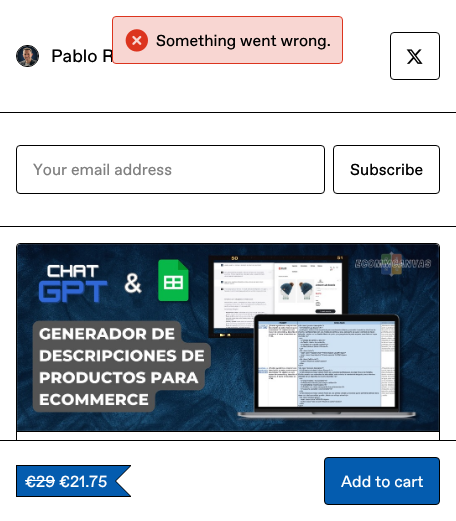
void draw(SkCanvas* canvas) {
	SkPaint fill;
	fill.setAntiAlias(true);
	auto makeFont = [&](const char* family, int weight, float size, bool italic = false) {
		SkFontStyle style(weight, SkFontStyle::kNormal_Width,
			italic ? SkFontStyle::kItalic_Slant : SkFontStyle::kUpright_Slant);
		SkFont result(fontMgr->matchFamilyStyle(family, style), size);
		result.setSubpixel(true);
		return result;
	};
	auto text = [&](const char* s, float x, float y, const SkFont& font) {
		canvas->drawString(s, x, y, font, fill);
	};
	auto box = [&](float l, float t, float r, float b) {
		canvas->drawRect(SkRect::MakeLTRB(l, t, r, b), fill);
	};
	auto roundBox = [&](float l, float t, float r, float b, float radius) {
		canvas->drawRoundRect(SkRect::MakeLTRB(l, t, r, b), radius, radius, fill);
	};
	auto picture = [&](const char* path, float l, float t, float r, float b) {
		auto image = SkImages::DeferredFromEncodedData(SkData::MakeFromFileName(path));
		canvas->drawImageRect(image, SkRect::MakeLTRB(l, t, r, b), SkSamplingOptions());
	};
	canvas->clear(0xFFFFFFFF);
	fill.setColor(0xFF000000);
	box(0, 112, 456, 113);
	fill.setStyle(SkPaint::kStroke_Style);
	fill.setStrokeWidth(1);
	canvas->drawRoundRect(SkRect::MakeLTRB(16.5f, 45.5f, 38.5f, 66.5f), 10.5f, 10.5f, fill);
	picture("image1.png", 17, 46, 38, 66);
	canvas->drawRoundRect(SkRect::MakeLTRB(390.5f, 32.5f, 439.5f, 79.5f), 3.5f, 3.5f, fill);
	picture("image2.png", 406, 49, 423, 64);
	fill.setStyle(SkPaint::kFill_Style);
	box(0, 226, 456, 227);
	fill.setStyle(SkPaint::kStroke_Style);
	canvas->drawRoundRect(SkRect::MakeLTRB(16.5f, 145.5f, 324.5f, 193.5f), 3.5f, 3.5f, fill);
	canvas->drawRoundRect(SkRect::MakeLTRB(333.5f, 145.5f, 439.5f, 193.5f), 3.5f, 3.5f, fill);
	canvas->drawRoundRect(SkRect::MakeLTRB(16.5f, 243.5f, 439.5f, 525.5f), 3.5f, 3.5f, fill);
	fill.setStyle(SkPaint::kFill_Style);
	box(17, 431, 439, 432);
	picture("image3.png", 17, 244, 439, 431);
	box(0, 440, 456, 441);
	fill.setColor(0xFFFFFFFF);
	box(16, 441, 440, 521);
	fill.setColor(0xFF000000);
	box(16, 465, 131, 466);
	box(16, 496, 131, 497);
	box(16, 465, 17, 497);
	fill.setColor(0xFF045CAF);
	box(17, 466, 115, 496);
	fill.setColor(0xFF000000);
	canvas->drawPath(SkPathBuilder().moveTo(115, 466).lineTo(131, 466).lineTo(116, 481).close().moveTo(131, 496).lineTo(115, 496).lineTo(116, 481).close().detach(), fill);
	box(115, 480, 116, 482);
	fill.setColor(0xFF045CAF);
	canvas->drawPath(SkPathBuilder().moveTo(114, 466).lineTo(130, 466).lineTo(115, 481).close().moveTo(130, 496).lineTo(114, 496).lineTo(115, 481).close().detach(), fill);
	fill.setColor(0xFFFFFFFF);
	box(25, 480, 55, 481);
	fill.setColor(0xFF045CAF);
	canvas->drawRoundRect(SkRect::MakeLTRB(324.5f, 457.5f, 439.5f, 504.5f), 3.5f, 3.5f, fill);
	fill.setStyle(SkPaint::kStroke_Style);
	fill.setColor(0xFF000000);
	canvas->drawRoundRect(SkRect::MakeLTRB(324.5f, 457.5f, 439.5f, 504.5f), 3.5f, 3.5f, fill);
	auto font1 = makeFont("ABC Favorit", 400, 18);
	fill.setStyle(SkPaint::kFill_Style);
	text("Pablo R", 51, 62, font1);
	fill.setColor(0xFFFFFFFF);
	roundBox(112, 16, 343, 64, 4);
	fill.setColor(0x33DC341E);
	canvas->drawRoundRect(SkRect::MakeLTRB(112.5f, 16.5f, 342.5f, 63.5f), 3.5f, 3.5f, fill);
	fill.setStyle(SkPaint::kStroke_Style);
	fill.setColor(0xFFDC341E);
	canvas->drawRoundRect(SkRect::MakeLTRB(112.5f, 16.5f, 342.5f, 63.5f), 3.5f, 3.5f, fill);
	picture("image0.png", 125, 29, 148, 52);
	auto font2 = makeFont("ABC Favorit", 400, 16);
	fill.setStyle(SkPaint::kFill_Style);
	fill.setColor(0xFF000000);
	text("Something went wrong.", 156, 46, font2);
	fill.setColor(0xFF808080);
	text("Your email address", 33, 175, font2);
	fill.setColor(0xFF000000);
	text("Subscribe", 350, 175, font2);
	fill.setColor(0xFFFFFFFF);
	text("€29 €21.75", 25, 487, font2);
	text("Add to cart", 341, 487, font2);
}
